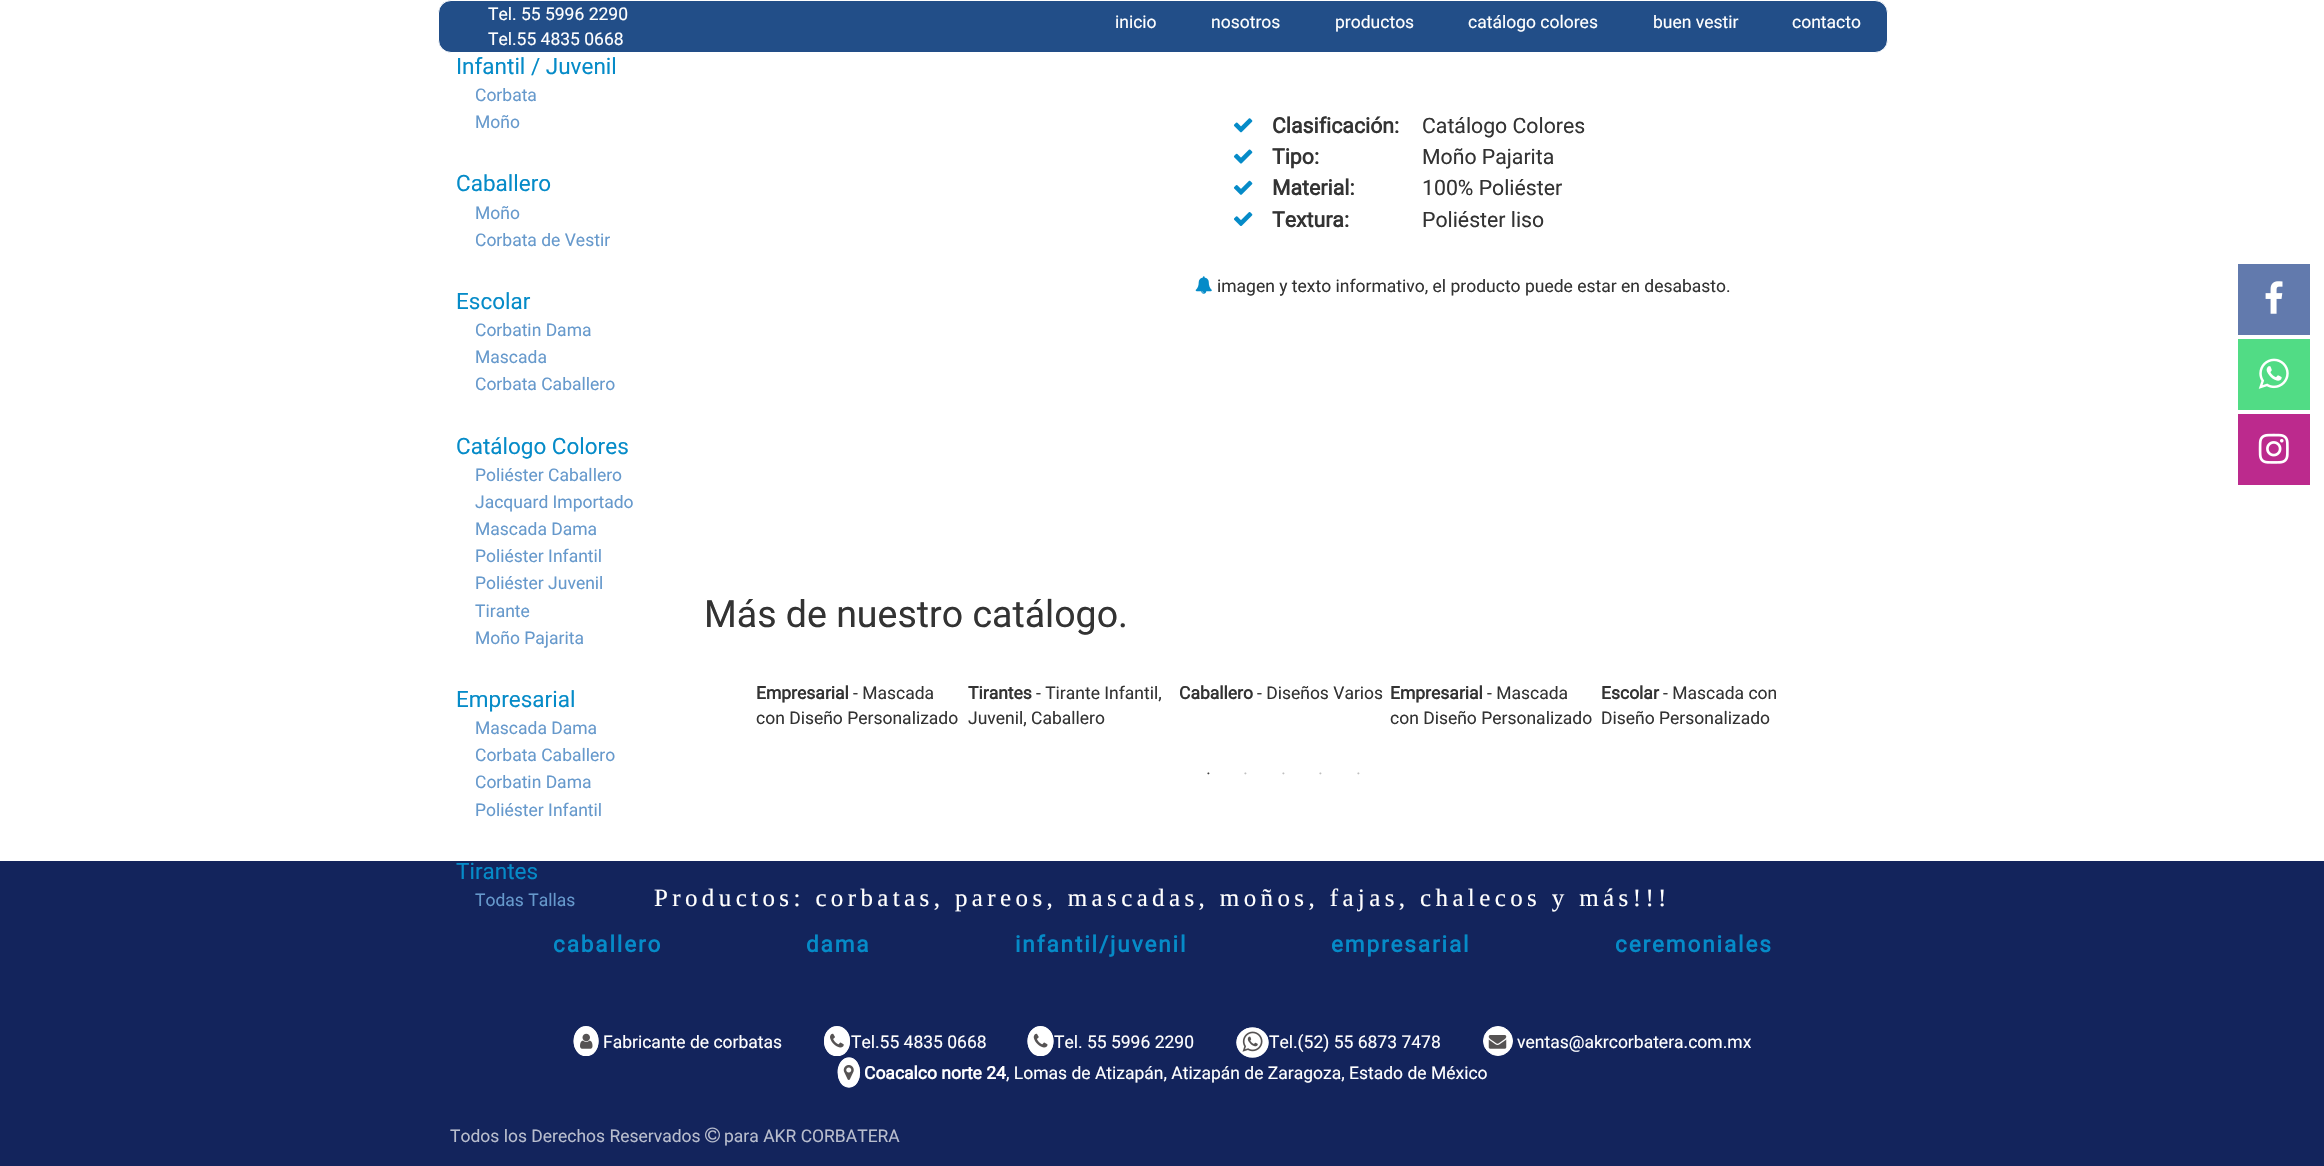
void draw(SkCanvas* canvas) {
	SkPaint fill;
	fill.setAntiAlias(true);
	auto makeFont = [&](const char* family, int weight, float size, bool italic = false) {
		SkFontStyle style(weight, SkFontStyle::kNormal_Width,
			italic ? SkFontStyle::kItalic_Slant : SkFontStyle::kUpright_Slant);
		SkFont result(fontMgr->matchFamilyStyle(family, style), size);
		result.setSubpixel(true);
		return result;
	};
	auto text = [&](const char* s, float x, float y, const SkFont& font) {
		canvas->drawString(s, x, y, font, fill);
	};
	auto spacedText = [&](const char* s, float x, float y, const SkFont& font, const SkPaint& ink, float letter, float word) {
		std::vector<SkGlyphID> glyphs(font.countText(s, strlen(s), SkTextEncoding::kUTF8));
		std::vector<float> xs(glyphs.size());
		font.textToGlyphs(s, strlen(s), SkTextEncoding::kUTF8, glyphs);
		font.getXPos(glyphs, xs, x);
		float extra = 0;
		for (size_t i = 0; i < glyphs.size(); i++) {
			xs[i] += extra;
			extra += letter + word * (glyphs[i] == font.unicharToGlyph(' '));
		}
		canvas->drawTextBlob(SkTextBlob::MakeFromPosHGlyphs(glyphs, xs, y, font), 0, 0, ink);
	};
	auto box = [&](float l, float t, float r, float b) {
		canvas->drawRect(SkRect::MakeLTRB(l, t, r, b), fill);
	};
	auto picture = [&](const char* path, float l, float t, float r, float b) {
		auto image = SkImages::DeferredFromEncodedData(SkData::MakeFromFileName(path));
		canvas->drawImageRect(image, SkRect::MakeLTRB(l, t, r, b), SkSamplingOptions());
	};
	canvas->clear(0xFFFFFFFF);
	fill.setColor(0xFF224E88);
	canvas->drawRoundRect(SkRect::MakeLTRB(438.5f, 0.5f, 1887.5f, 52.5f), 12.5f, 12.5f, fill);
	fill.setStyle(SkPaint::kStroke_Style);
	fill.setStrokeWidth(1);
	fill.setColor(0xFFFFFFFF);
	canvas->drawRoundRect(SkRect::MakeLTRB(438.5f, 0.5f, 1887.5f, 52.5f), 12.5f, 12.5f, fill);
	picture("image0.png", 1233, 118, 1253, 133);
	picture("image1.png", 1233, 149, 1253, 164);
	picture("image2.png", 1233, 180, 1253, 195);
	picture("image3.png", 1234, 212, 1253, 226);
	picture("image4.png", 1195, 276, 1212, 294);
	fill.setStyle(SkPaint::kFill_Style);
	fill.setColor(0xFF627AAD);
	box(2238, 264, 2310, 335);
	picture("image5.png", 2265, 281, 2283, 314);
	fill.setColor(0xFF51DC85);
	box(2238, 339, 2310, 410);
	picture("image6.png", 2258, 358, 2289, 389);
	fill.setColor(0xFFBC2A8D);
	box(2238, 414, 2310, 485);
	picture("image7.png", 2258, 433, 2289, 464);
	fill.setColor(0xFF13245C);
	box(0, 861, 2324, 1166);
	fill.setColor(0xFFFFFFFF);
	canvas->drawOval(SkRect::MakeLTRB(573.5f, 1026, 598.5f, 1056), fill);
	fill.setStyle(SkPaint::kStroke_Style);
	fill.setStrokeWidth(1.2f);
	canvas->drawPath(SkPathBuilder().moveTo(586, 1027).cubicTo(602, 1027, 602, 1055.5f, 586, 1055.5f).cubicTo(570.5f, 1055.5f, 570.5f, 1027, 586, 1027).close().detach(), fill);
	picture("image8.png", 580, 1033, 593, 1049);
	fill.setStyle(SkPaint::kFill_Style);
	canvas->drawOval(SkRect::MakeLTRB(824, 1026, 850, 1056), fill);
	fill.setStyle(SkPaint::kStroke_Style);
	canvas->drawPath(SkPathBuilder().moveTo(837, 1027).cubicTo(853.5f, 1027, 853.5f, 1055.5f, 837, 1055.5f).cubicTo(820.5f, 1055.5f, 820.5f, 1027, 837, 1027).close().detach(), fill);
	picture("image9.png", 830, 1033, 844, 1048);
	fill.setStyle(SkPaint::kFill_Style);
	canvas->drawOval(SkRect::MakeLTRB(1027.5f, 1026, 1053.5f, 1056), fill);
	fill.setStyle(SkPaint::kStroke_Style);
	canvas->drawPath(SkPathBuilder().moveTo(1040.5f, 1027).cubicTo(1057, 1027, 1057, 1055.5f, 1040.5f, 1055.5f).cubicTo(1024, 1055.5f, 1024, 1027, 1040.5f, 1027).close().detach(), fill);
	picture("image10.png", 1033, 1033, 1048, 1048);
	fill.setStyle(SkPaint::kFill_Style);
	canvas->drawOval(SkRect::MakeLTRB(1236.5f, 1027.5f, 1268.5f, 1057.5f), fill);
	fill.setStyle(SkPaint::kStroke_Style);
	canvas->drawPath(SkPathBuilder().moveTo(1252.5f, 1028).cubicTo(1261, 1028, 1268, 1034.5f, 1268, 1042.5f).cubicTo(1268, 1050.5f, 1261, 1057, 1252.5f, 1057).cubicTo(1244, 1057, 1237, 1050.5f, 1237, 1042.5f).cubicTo(1237, 1034.5f, 1244, 1028, 1252.5f, 1028).close().detach(), fill);
	picture("image11.png", 1242, 1031, 1263, 1052);
	fill.setStyle(SkPaint::kFill_Style);
	canvas->drawCircle(1498, 1041, 14.5f, fill);
	fill.setStyle(SkPaint::kStroke_Style);
	fill.setStrokeWidth(1);
	canvas->drawCircle(1498, 1041, 14.5f, fill);
	picture("image12.png", 1488, 1035, 1507, 1049);
	fill.setStyle(SkPaint::kFill_Style);
	canvas->drawOval(SkRect::MakeLTRB(838, 1057.5f, 860, 1087.5f), fill);
	fill.setStyle(SkPaint::kStroke_Style);
	fill.setStrokeWidth(1.2f);
	canvas->drawPath(SkPathBuilder().moveTo(849, 1058).cubicTo(863, 1058, 863, 1087, 849, 1087).cubicTo(834.5f, 1087, 834.5f, 1058, 849, 1058).close().detach(), fill);
	picture("image13.png", 843, 1065, 854, 1080);
	picture("image14.png", 705, 1127, 720, 1143);
	auto font1 = makeFont("Roboto", 400, 17.5f);
	fill.setStyle(SkPaint::kFill_Style);
	text("Tel. 55 5996 2290", 488, 20, font1);
	text("Tel.55 4835 0668", 488, 45, font1);
	text("inicio", 1115, 28, font1);
	text("nosotros", 1211, 28, font1);
	text("productos", 1335, 28, font1);
	text("catálogo colores", 1468, 28, font1);
	text("buen vestir", 1653, 28, font1);
	text("contacto", 1792, 28, font1);
	auto font2 = makeFont("Roboto", 400, 22.5f);
	fill.setColor(0xFF058BC8);
	text("Infantil / Juvenil", 456, 74, font2);
	fill.setColor(0xFF6699CC);
	text("Corbata", 475, 101, font1);
	text("Moño", 475, 128, font1);
	fill.setColor(0xFF058BC8);
	text("Caballero", 456, 191, font2);
	fill.setColor(0xFF6699CC);
	text("Moño", 475, 219, font1);
	text("Corbata de Vestir", 475, 246, font1);
	fill.setColor(0xFF058BC8);
	text("Escolar", 456, 309, font2);
	fill.setColor(0xFF6699CC);
	text("Corbatin Dama", 475, 336, font1);
	text("Mascada", 475, 363, font1);
	text("Corbata Caballero", 475, 390, font1);
	fill.setColor(0xFF058BC8);
	text("Catálogo Colores", 456, 454, font2);
	fill.setColor(0xFF6699CC);
	text("Poliéster Caballero", 475, 481, font1);
	text("Jacquard Importado", 475, 508, font1);
	text("Mascada Dama", 475, 535, font1);
	text("Poliéster Infantil", 475, 562, font1);
	text("Poliéster Juvenil", 475, 589, font1);
	text("Tirante", 475, 617, font1);
	text("Moño Pajarita", 475, 644, font1);
	fill.setColor(0xFF058BC8);
	text("Empresarial", 456, 707, font2);
	fill.setColor(0xFF6699CC);
	text("Mascada Dama", 475, 734, font1);
	text("Corbata Caballero", 475, 761, font1);
	text("Corbatin Dama", 475, 788, font1);
	text("Poliéster Infantil", 475, 816, font1);
	fill.setColor(0xFF058BC8);
	text("Tirantes", 456, 879, font2);
	fill.setColor(0xFF6699CC);
	text("Todas Tallas", 475, 906, font1);
	auto font3 = makeFont("Roboto", 700, 21.25f);
	fill.setColor(0xFF333333);
	text("Clasificación:", 1272, 133, font3);
	auto font4 = makeFont("Roboto", 400, 21.25f);
	text("Catálogo Colores", 1422, 133, font4);
	text("Tipo:", 1272, 164, font3);
	text("Moño Pajarita", 1422, 164, font4);
	text("Material:", 1272, 195, font3);
	text("100% Poliéster", 1422, 195, font4);
	text("Textura:", 1272, 227, font3);
	text("Poliéster liso", 1422, 227, font4);
	text("imagen y texto informativo, el producto puede estar en desabasto.", 1217, 292, font1);
	auto font5 = makeFont("Roboto", 400, 37.5f);
	text("Más de nuestro catálogo.", 704, 627, font5);
	auto font6 = makeFont("Roboto", 700, 17.5f);
	text("Empresarial", 756, 699, font6);
	text("- Mascada", 853, 699, font1);
	text("con Diseño Personalizado", 756, 724, font1);
	text("Tirantes", 968, 699, font6);
	text("- Tirante Infantil,", 1036, 699, font1);
	text("Juvenil, Caballero", 968, 724, font1);
	text("Caballero", 1179, 699, font6);
	text("- Diseños Varios", 1257, 699, font1);
	text("Empresarial", 1390, 699, font6);
	text("- Mascada", 1487, 699, font1);
	text("con Diseño Personalizado", 1390, 724, font1);
	text("Escolar", 1601, 699, font6);
	text("- Mascada con", 1663, 699, font1);
	text("Diseño Personalizado", 1601, 724, font1);
	auto font7 = makeFont("Liberation Serif", 400, 8);
	fill.setColor(0xFF404040);
	text("•", 1207, 776, font7);
	fill.setColor(0xFFBFBFBF);
	text("•", 1244, 776, font7);
	text("•", 1282, 776, font7);
	text("•", 1319, 776, font7);
	text("•", 1357, 776, font7);
	auto font8 = makeFont("Liberation Serif", 400, 25);
	fill.setColor(0xFFFFFFFF);
	spacedText("Productos: corbatas, pareos, mascadas, moños, fajas, chalecos y más!!!", 654, 906, font8, fill, 4.38f, 0);
	auto font9 = makeFont("Roboto", 700, 22.5f);
	fill.setColor(0xFF058BC8);
	spacedText("caballero", 553, 952, font9, fill, 1.9f, 0);
	spacedText("dama", 806, 952, font9, fill, 1.9f, 0);
	spacedText("infantil/juvenil", 1015, 952, font9, fill, 1.9f, 0);
	spacedText("empresarial", 1331, 952, font9, fill, 1.9f, 0);
	spacedText("ceremoniales", 1615, 952, font9, fill, 1.9f, 0);
	fill.setColor(0xFFFFFFFF);
	text("Fabricante de corbatas", 603, 1048, font1);
	text("Tel.55 4835 0668", 851, 1048, font1);
	text("Tel. 55 5996 2290", 1054, 1048, font1);
	text("Tel.(52) 55 6873 7478", 1269, 1048, font1);
	text("ventas@akrcorbatera.com.mx", 1517, 1048, font1);
	text("Coacalco norte 24", 864, 1079, font6);
	text(", Lomas de Atizapán, Atizapán de Zaragoza, Estado de México", 1006, 1079, font1);
	fill.setColor(0xFFB8BDCD);
	text("Todos los Derechos Reservados", 450, 1142, font1);
	text("para AKR CORBATERA", 724, 1142, font1);
}
